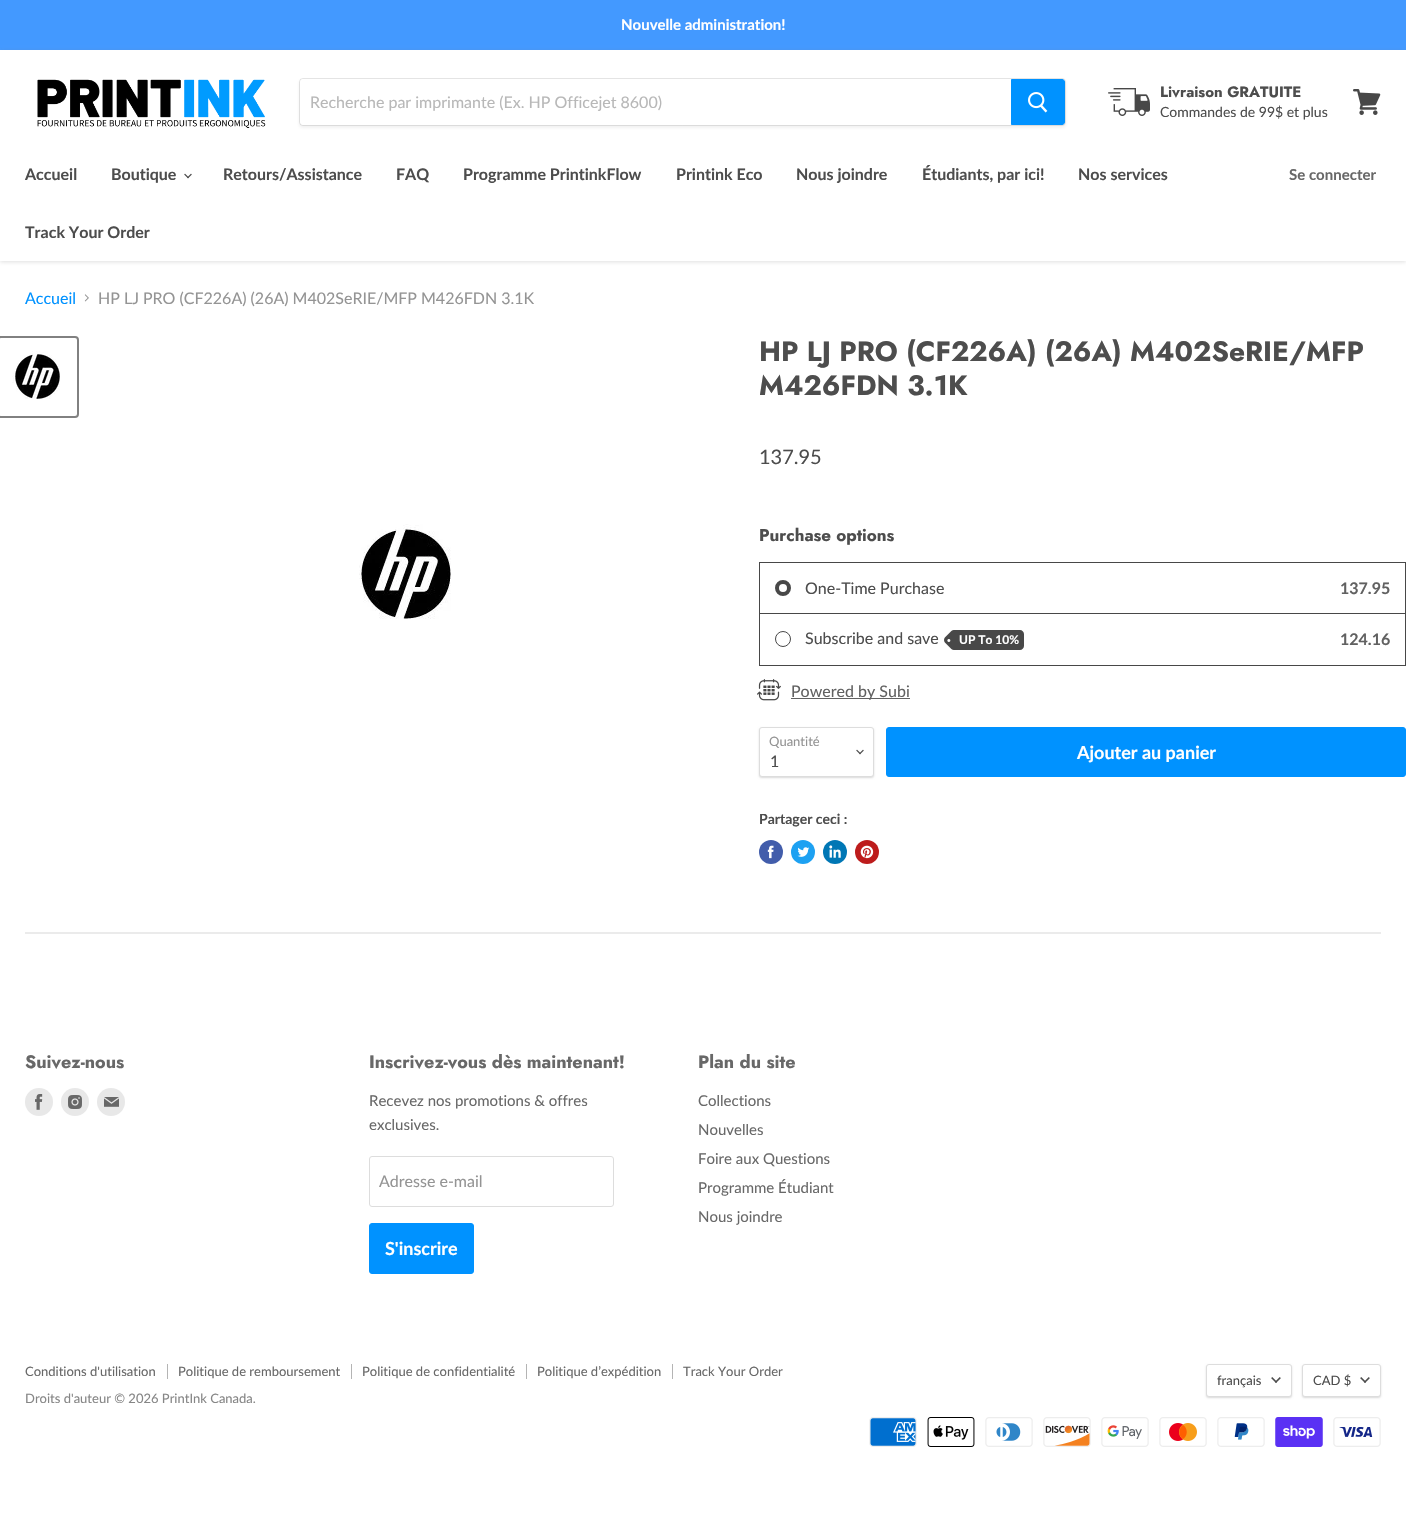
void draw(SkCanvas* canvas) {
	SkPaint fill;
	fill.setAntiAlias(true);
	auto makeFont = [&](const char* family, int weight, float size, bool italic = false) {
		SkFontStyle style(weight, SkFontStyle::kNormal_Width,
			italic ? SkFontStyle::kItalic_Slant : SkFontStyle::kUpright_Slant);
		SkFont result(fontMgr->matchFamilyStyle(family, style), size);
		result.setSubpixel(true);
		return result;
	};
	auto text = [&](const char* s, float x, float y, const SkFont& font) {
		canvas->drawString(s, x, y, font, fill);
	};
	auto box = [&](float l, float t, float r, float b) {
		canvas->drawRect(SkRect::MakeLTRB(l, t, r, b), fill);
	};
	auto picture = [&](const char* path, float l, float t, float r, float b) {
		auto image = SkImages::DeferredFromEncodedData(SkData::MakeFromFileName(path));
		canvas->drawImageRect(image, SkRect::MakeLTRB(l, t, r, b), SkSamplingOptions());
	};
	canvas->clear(0xFFFFFFFF);
	fill.setColor(0xFF4399FF);
	box(0, 0, 1406, 50);
	canvas->save();
	canvas->clipPath(SkPathBuilder(SkPathFillType::kEvenOdd).moveTo(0, 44).lineTo(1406, 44).lineTo(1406, 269).lineTo(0, 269).close().moveTo(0, 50).lineTo(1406, 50).lineTo(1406, 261).lineTo(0, 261).close().detach(), true);
	fill.setColor(0x40808080);
	fill.setMaskFilter(SkMaskFilter::MakeBlur(kNormal_SkBlurStyle, 2));
	canvas->drawRect(SkRect::MakeLTRB(0, 51, 1406, 262), fill);
	fill.setMaskFilter(nullptr);
	canvas->restore();
	picture("image0.png", 37, 79, 266, 128);
	fill.setColor(0x1C808080);
	fill.setMaskFilter(SkMaskFilter::MakeBlur(kNormal_SkBlurStyle, 1.5f));
	canvas->drawRoundRect(SkRect::MakeLTRB(299, 80, 1066, 128), 4, 4, fill);
	fill.setMaskFilter(nullptr);
	fill.setStyle(SkPaint::kStroke_Style);
	fill.setStrokeWidth(1);
	fill.setColor(0x33808080);
	canvas->drawRoundRect(SkRect::MakeLTRB(299.5f, 78.5f, 1065.5f, 125.5f), 3.5f, 3.5f, fill);
	fill.setStyle(SkPaint::kFill_Style);
	fill.setColor(0xFFFFFFFF);
	canvas->drawPath(SkPathBuilder().moveTo(303, 79).lineTo(1011, 79).lineTo(1011, 125).lineTo(303, 125).cubicTo(301.5f, 125, 300, 123.5f, 300, 122).lineTo(300, 82).cubicTo(300, 80.5f, 301.5f, 79, 303, 79).close().detach(), fill);
	fill.setColor(0xFF0092FF);
	canvas->drawPath(SkPathBuilder().moveTo(1011.5f, 79.5f).lineTo(1062, 79.5f).cubicTo(1063.5f, 79.5f, 1064.5f, 80.5f, 1064.5f, 82).lineTo(1064.5f, 122).cubicTo(1064.5f, 123.5f, 1063.5f, 124.5f, 1062, 124.5f).lineTo(1011.5f, 124.5f).close().detach(), fill);
	fill.setStyle(SkPaint::kStroke_Style);
	canvas->drawPath(SkPathBuilder().moveTo(1011.5f, 79.5f).lineTo(1062, 79.5f).cubicTo(1063.5f, 79.5f, 1064.5f, 80.5f, 1064.5f, 82).lineTo(1064.5f, 122).cubicTo(1064.5f, 123.5f, 1063.5f, 124.5f, 1062, 124.5f).lineTo(1011.5f, 124.5f).close().detach(), fill);
	picture("image1.png", 1028, 92, 1048, 113);
	picture("image2.png", 1108, 88, 1150, 116);
	picture("image3.png", 1353, 89, 1381, 115);
	picture("image4.png", 184, 173, 192, 179);
	picture("image5.png", 84, 294, 89, 302);
	fill.setStrokeWidth(2);
	fill.setColor(0xFF818181);
	canvas->drawRoundRect(SkRect::MakeLTRB(-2, 337, 78, 417), 3, 3, fill);
	picture("image6.png", 12, 351, 60, 399);
	picture("image7.png", 359, 524, 451, 619);
	fill.setStrokeWidth(1);
	fill.setColor(0xFF484848);
	canvas->drawRect(SkRect::MakeLTRB(759.5f, 562.5f, 1405.5f, 665.5f), fill);
	fill.setStyle(SkPaint::kFill_Style);
	box(760, 613, 1405, 614);
	fill.setStyle(SkPaint::kStroke_Style);
	fill.setStrokeWidth(4);
	canvas->drawCircle(783, 588, 6, fill);
	fill.setStrokeWidth(1);
	canvas->drawCircle(783, 639, 7.5f, fill);
	fill.setStyle(SkPaint::kFill_Style);
	canvas->drawPath(SkPathBuilder().moveTo(954, 630).lineTo(1020, 630).cubicTo(1022, 630, 1024, 632, 1024, 634).lineTo(1024, 646).cubicTo(1024, 648, 1022, 650, 1020, 650).lineTo(954, 650).close().detach(), fill);
	picture("image8.png", 944, 630, 954, 650);
	picture("image9.png", 757, 679, 781, 701);
	fill.setColor(0xFF616161);
	box(791, 698, 910, 699);
	fill.setColor(0x26000000);
	fill.setMaskFilter(SkMaskFilter::MakeBlur(kNormal_SkBlurStyle, 1));
	canvas->drawRoundRect(SkRect::MakeLTRB(759, 728, 874, 778), 3, 3, fill);
	fill.setMaskFilter(nullptr);
	fill.setColor(0xFFFFFFFF);
	canvas->drawRoundRect(SkRect::MakeLTRB(759.5f, 727.5f, 873.5f, 776.5f), 2.5f, 2.5f, fill);
	fill.setStyle(SkPaint::kStroke_Style);
	fill.setColor(0xFFDDDDDD);
	canvas->drawRoundRect(SkRect::MakeLTRB(759.5f, 727.5f, 873.5f, 776.5f), 2.5f, 2.5f, fill);
	picture("image10.png", 856, 749, 864, 755);
	fill.setStyle(SkPaint::kFill_Style);
	fill.setColor(0xFF0092FF);
	canvas->drawRoundRect(SkRect::MakeLTRB(886.5f, 727.5f, 1405.5f, 776.5f), 2.5f, 2.5f, fill);
	fill.setStyle(SkPaint::kStroke_Style);
	canvas->drawRoundRect(SkRect::MakeLTRB(886.5f, 727.5f, 1405.5f, 776.5f), 2.5f, 2.5f, fill);
	fill.setStyle(SkPaint::kFill_Style);
	fill.setColor(0xFF425DAB);
	canvas->drawCircle(771, 852, 12, fill);
	picture("image11.png", 767, 845, 774, 859);
	fill.setColor(0xFF1DA1F2);
	canvas->drawCircle(803, 852, 12, fill);
	picture("image12.png", 797, 847, 810, 857);
	fill.setColor(0xFF0077B5);
	canvas->drawCircle(835, 852, 12, fill);
	picture("image13.png", 829, 845, 841, 858);
	fill.setColor(0xFFBD1C1C);
	canvas->drawCircle(867, 852, 12, fill);
	picture("image14.png", 860, 845, 874, 859);
	fill.setColor(0xFFEBEBEB);
	box(25, 932, 1381, 934);
	fill.setColor(0xFFE8E8E8);
	canvas->drawCircle(39, 1102, 14, fill);
	picture("image15.png", 35, 1094, 43, 1110);
	canvas->drawCircle(75, 1102, 14, fill);
	picture("image16.png", 68, 1095, 82, 1109);
	canvas->drawCircle(111, 1102, 14, fill);
	picture("image17.png", 104, 1097, 119, 1107);
	fill.setStyle(SkPaint::kStroke_Style);
	fill.setColor(0xFFDDDDDD);
	canvas->drawRoundRect(SkRect::MakeLTRB(369.5f, 1156.5f, 613.5f, 1206.5f), 2.5f, 2.5f, fill);
	fill.setStyle(SkPaint::kFill_Style);
	fill.setColor(0xFF0092FF);
	canvas->drawRoundRect(SkRect::MakeLTRB(369.5f, 1223.5f, 473.5f, 1273.5f), 2.5f, 2.5f, fill);
	fill.setStyle(SkPaint::kStroke_Style);
	canvas->drawRoundRect(SkRect::MakeLTRB(369.5f, 1223.5f, 473.5f, 1273.5f), 2.5f, 2.5f, fill);
	fill.setStyle(SkPaint::kFill_Style);
	fill.setColor(0xFFB4B4B4);
	box(167, 1364, 168, 1379);
	box(351, 1364, 352, 1379);
	box(526, 1364, 527, 1379);
	box(672, 1364, 673, 1379);
	fill.setColor(0x26000000);
	fill.setMaskFilter(SkMaskFilter::MakeBlur(kNormal_SkBlurStyle, 1));
	canvas->drawRoundRect(SkRect::MakeLTRB(1206, 1365, 1292, 1398), 3, 3, fill);
	fill.setMaskFilter(nullptr);
	fill.setColor(0xFFFFFFFF);
	canvas->drawRoundRect(SkRect::MakeLTRB(1206.5f, 1364.5f, 1291.5f, 1396.5f), 2.5f, 2.5f, fill);
	fill.setStyle(SkPaint::kStroke_Style);
	fill.setColor(0xFFDDDDDD);
	canvas->drawRoundRect(SkRect::MakeLTRB(1206.5f, 1364.5f, 1291.5f, 1396.5f), 2.5f, 2.5f, fill);
	picture("image18.png", 1271, 1377, 1281, 1383);
	fill.setStyle(SkPaint::kFill_Style);
	fill.setColor(0x26000000);
	fill.setMaskFilter(SkMaskFilter::MakeBlur(kNormal_SkBlurStyle, 1));
	canvas->drawRoundRect(SkRect::MakeLTRB(1302, 1365, 1381, 1398), 3, 3, fill);
	fill.setMaskFilter(nullptr);
	fill.setColor(0xFFFFFFFF);
	canvas->drawRoundRect(SkRect::MakeLTRB(1302.5f, 1364.5f, 1380.5f, 1396.5f), 2.5f, 2.5f, fill);
	fill.setStyle(SkPaint::kStroke_Style);
	fill.setColor(0xFFDDDDDD);
	canvas->drawRoundRect(SkRect::MakeLTRB(1302.5f, 1364.5f, 1380.5f, 1396.5f), 2.5f, 2.5f, fill);
	picture("image18.png", 1360, 1377, 1370, 1383);
	picture("image19.png", 869, 1417, 917, 1447);
	picture("image20.png", 927, 1417, 975, 1447);
	picture("image21.png", 985, 1417, 1033, 1447);
	picture("image22.png", 1043, 1417, 1091, 1447);
	picture("image23.png", 1101, 1417, 1149, 1447);
	picture("image24.png", 1159, 1417, 1207, 1447);
	picture("image25.png", 1217, 1417, 1265, 1447);
	picture("image26.png", 1275, 1417, 1323, 1447);
	picture("image27.png", 1333, 1417, 1381, 1447);
	auto font1 = makeFont("Lato", 700, 15);
	fill.setStyle(SkPaint::kFill_Style);
	fill.setColor(0xFFFFFFFF);
	text("Nouvelle administration!", 621, 30, font1);
	auto font2 = makeFont("Lato", 400, 16);
	fill.setColor(0xFFB8B8B8);
	text("Recherche par imprimante (Ex. HP Officejet 8600)", 310, 108, font2);
	auto font3 = makeFont("Jost", 700, 15);
	fill.setColor(0xFF4D4D4D);
	text("Livraison GRATUITE", 1160, 97, font3);
	auto font4 = makeFont("Lato", 400, 14);
	text("Commandes de 99$ et plus", 1160, 117, font4);
	auto font5 = makeFont("Lato", 700, 16);
	text("Accueil", 25, 180, font5);
	text("Boutique", 111, 180, font5);
	text("Retours/Assistance", 223, 180, font5);
	text("FAQ", 396, 180, font5);
	text("Programme PrintinkFlow", 463, 180, font5);
	text("Printink Eco", 676, 180, font5);
	text("Nous joindre", 796, 180, font5);
	text("Étudiants, par ici!", 922, 180, font5);
	text("Nos services", 1078, 180, font5);
	text("Track Your Order", 25, 238, font5);
	fill.setColor(0xFF686868);
	text("Se connecter", 1289, 180, font1);
	fill.setColor(0xFF0092FF);
	text("Accueil", 25, 304, font2);
	fill.setColor(0xFF949494);
	text("HP LJ PRO (CF226A) (26A) M402SeRIE/MFP M426FDN 3.1K", 98, 304, font2);
	auto font6 = makeFont("Jost", 700, 28);
	fill.setColor(0xFF4D4D4D);
	text("HP LJ PRO (CF226A) (26A) M402SeRIE/MFP", 759, 361, font6);
	text("M426FDN 3.1K", 759, 395, font6);
	auto font7 = makeFont("Lato", 400, 20);
	text("137.95", 759, 464, font7);
	auto font8 = makeFont("Jost", 700, 17);
	text("Purchase options", 759, 541, font8);
	text("One-Time Purchase", 805, 594, font2);
	fill.setColor(0xFF616161);
	text("137.95", 1340, 594, font5);
	fill.setColor(0xFF4D4D4D);
	text("Subscribe and save", 805, 644, font2);
	auto font9 = makeFont("Lato", 700, 12);
	fill.setColor(0xFFFFFFFF);
	text("UP To 10%", 959, 644, font9);
	fill.setColor(0xFF616161);
	text("124.16", 1340, 645, font5);
	text("Powered by Subi", 791, 697, font2);
	auto font10 = makeFont("Lato", 400, 13);
	fill.setColor(0xFF949494);
	text("Quantité", 769, 746, font10);
	fill.setColor(0xFF4D4D4D);
	text("1", 770, 767, font2);
	auto font11 = makeFont("Lato", 700, 18);
	fill.setColor(0xFFFFFFFF);
	text("Ajouter au panier", 1077, 759, font11);
	auto font12 = makeFont("Lato", 700, 14);
	fill.setColor(0xFF4D4D4D);
	text("Partager ceci :", 759, 824, font12);
	auto font13 = makeFont("Jost", 700, 18);
	fill.setColor(0xFF686868);
	text("Suivez-nous", 25, 1068, font13);
	text("Inscrivez-vous dès maintenant!", 369, 1068, font13);
	auto font14 = makeFont("Lato", 400, 15);
	text("Recevez nos promotions & offres", 369, 1106, font14);
	text("exclusives.", 369, 1130, font14);
	fill.setColor(0xFF949494);
	text("Adresse e-mail", 379, 1187, font2);
	fill.setColor(0xFFFFFFFF);
	text("S'inscrire", 385, 1255, font11);
	fill.setColor(0xFF686868);
	text("Plan du site", 698, 1068, font13);
	text("Collections", 698, 1106, font14);
	text("Nouvelles", 698, 1135, font14);
	text("Foire aux Questions", 698, 1164, font14);
	text("Programme Étudiant", 698, 1193, font14);
	text("Nous joindre", 698, 1222, font14);
	text("Conditions d'utilisation", 25, 1376, font10);
	text("Politique de remboursement", 178, 1376, font10);
	text("Politique de confidentialité", 362, 1376, font10);
	text("Politique d’expédition", 537, 1376, font10);
	text("Track Your Order", 683, 1376, font10);
	fill.setColor(0xFF868686);
	text("Droits d'auteur © 2026 PrintInk Canada.", 25, 1403, font10);
	fill.setColor(0xFF4D4D4D);
	text("français", 1217, 1385, font10);
	text("CAD $", 1313, 1385, font10);
}
